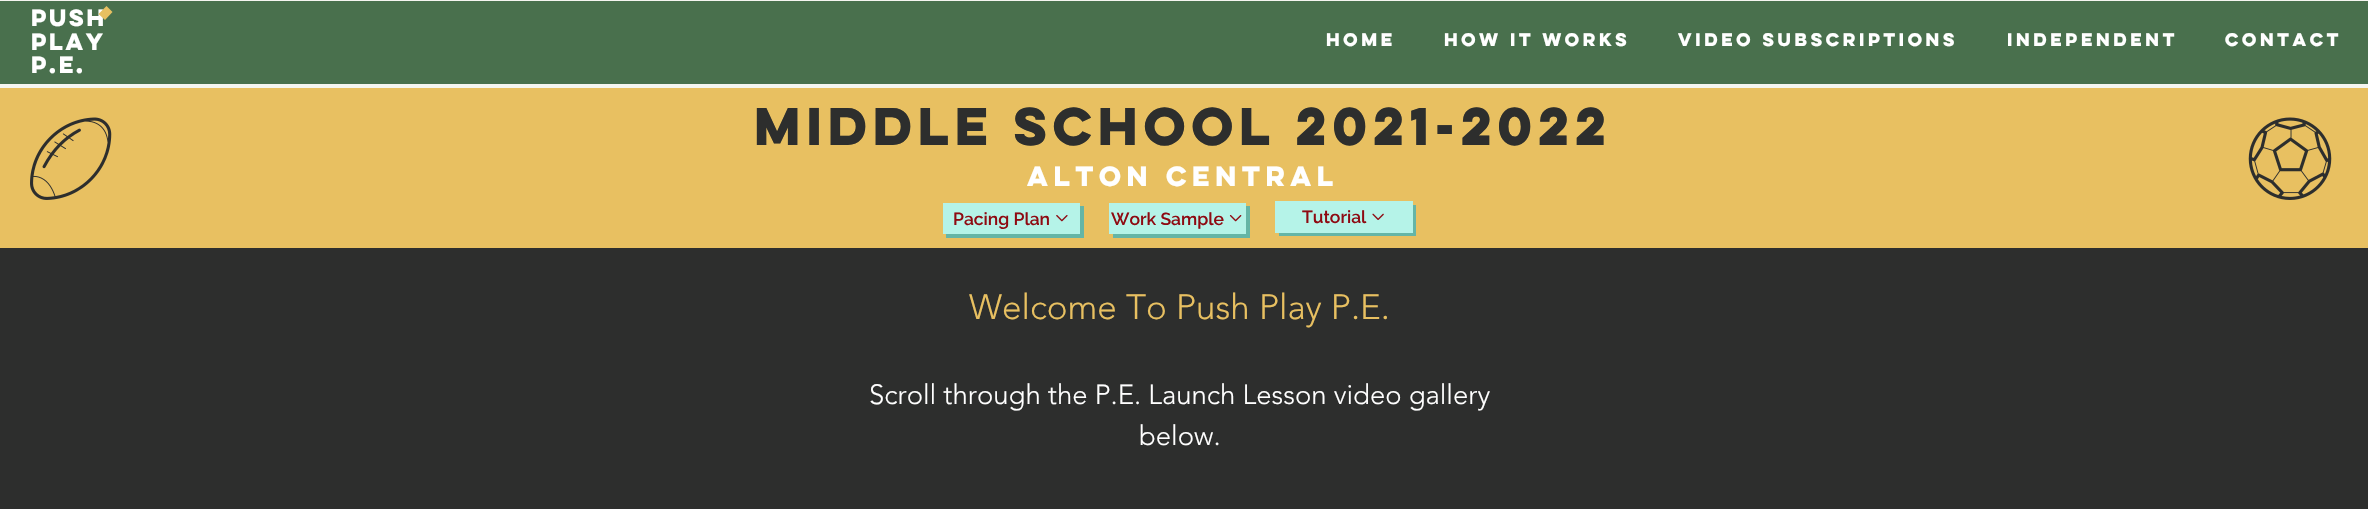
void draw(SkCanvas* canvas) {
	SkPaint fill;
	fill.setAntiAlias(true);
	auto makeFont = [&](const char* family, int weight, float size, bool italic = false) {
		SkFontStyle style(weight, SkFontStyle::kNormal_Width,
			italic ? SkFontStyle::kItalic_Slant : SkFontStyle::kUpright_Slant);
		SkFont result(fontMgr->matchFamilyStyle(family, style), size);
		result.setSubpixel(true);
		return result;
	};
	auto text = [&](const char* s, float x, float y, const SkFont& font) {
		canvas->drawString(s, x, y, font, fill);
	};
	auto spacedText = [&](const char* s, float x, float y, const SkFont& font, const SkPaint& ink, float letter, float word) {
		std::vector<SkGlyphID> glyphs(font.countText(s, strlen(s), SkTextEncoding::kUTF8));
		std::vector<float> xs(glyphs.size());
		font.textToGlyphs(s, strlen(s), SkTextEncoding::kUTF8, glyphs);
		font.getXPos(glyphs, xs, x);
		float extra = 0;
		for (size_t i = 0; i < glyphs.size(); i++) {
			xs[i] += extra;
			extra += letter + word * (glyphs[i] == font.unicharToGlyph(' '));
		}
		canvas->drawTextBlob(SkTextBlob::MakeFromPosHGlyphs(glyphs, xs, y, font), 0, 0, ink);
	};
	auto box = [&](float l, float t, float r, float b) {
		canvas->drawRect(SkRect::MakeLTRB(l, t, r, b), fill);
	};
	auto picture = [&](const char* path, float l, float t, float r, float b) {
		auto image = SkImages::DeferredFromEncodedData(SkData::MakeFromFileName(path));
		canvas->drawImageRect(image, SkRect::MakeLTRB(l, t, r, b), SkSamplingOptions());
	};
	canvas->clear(0xFF2D2E2D);
	fill.setColor(0xFFF5F5F0);
	box(0, 0, 2368, 88);
	fill.setColor(0xFF49704D);
	box(0, 1, 2368, 84);
	fill.setColor(0xFFE8C061);
	box(0, 88, 2368, 248);
	picture("image0.png", 30, 117, 112, 200);
	fill.setColor(0xFF65B5A6);
	canvas->drawPath(SkPathBuilder().moveTo(946, 234).lineTo(946, 238).lineTo(1084, 238).lineTo(1084, 206).lineTo(1080, 206).lineTo(1080, 234).close().detach(), fill);
	fill.setColor(0xFFB5F3E8);
	box(943, 203, 1080, 234);
	picture("image1.png", 1056, 215, 1068, 222);
	fill.setColor(0xFF65B5A6);
	canvas->drawPath(SkPathBuilder().moveTo(1113, 234).lineTo(1113, 238).lineTo(1250, 238).lineTo(1250, 206).lineTo(1246, 206).lineTo(1246, 234).close().detach(), fill);
	fill.setColor(0xFFB5F3E8);
	box(1109, 203, 1246, 234);
	picture("image2.png", 1229, 215, 1242, 222);
	fill.setColor(0xFF65B5A6);
	canvas->drawPath(SkPathBuilder().moveTo(1279, 232).lineTo(1279, 236).lineTo(1416, 236).lineTo(1416, 205).lineTo(1412, 205).lineTo(1412, 232).close().detach(), fill);
	fill.setColor(0xFFB5F3E8);
	box(1275, 201, 1413, 233);
	picture("image3.png", 1372, 213, 1384, 220);
	picture("image4.png", 2248, 117, 2332, 200);
	auto font1 = makeFont("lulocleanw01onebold", 700, 21);
	fill.setColor(0xFFFFFFFF);
	spacedText("Push", 31, 26, font1, fill, -2, 0);
	spacedText("Play", 31, 50, font1, fill, -2, 0);
	spacedText("P.E.", 31, 73, font1, fill, -2, 0);
	fill.setColor(0xFFE8C061);
	canvas->drawPath(SkPathBuilder().moveTo(112.5f, 12).lineTo(105, 20).lineTo(98.5f, 14).lineTo(106.5f, 6).close().detach(), fill);
	auto font2 = makeFont("lulocleanw01onebold", 700, 16.25f);
	fill.setColor(0xFFFFFFFF);
	text("HOME", 1326, 46, font2);
	text("How It Works", 1444, 46, font2);
	text("Video Subscriptions", 1678, 46, font2);
	text("Independent", 2007, 46, font2);
	text("CONTACT", 2225, 46, font2);
	auto font3 = makeFont("lulocleanw01onebold", 700, 47.5f);
	fill.setColor(0xFF2D2E2D);
	spacedText("Middle School 2021-2022", 754, 145, font3, fill, -4.75f, 0);
	auto font4 = makeFont("lulocleanw01onebold", 700, 25);
	fill.setColor(0xFFFFFFFF);
	text("Alton Central", 1027, 186, font4);
	auto font5 = makeFont("Raleway", 600, 17.5f);
	fill.setColor(0xFF8E0A12);
	text("Pacing Plan", 953, 225, font5);
	text("Work Sample", 1111, 225, font5);
	text("Tutorial", 1302, 223, font5);
	auto font6 = makeFont("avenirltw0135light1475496", 300, 35);
	fill.setColor(0xFFE8C061);
	text("Welcome To Push Play P.E.", 969, 319, font6);
	auto font7 = makeFont("avenirltw0135light1475496", 300, 27.5f);
	fill.setColor(0xFFFFFFFF);
	text("Scroll through the P.E. Launch Lesson video gallery", 869, 404, font7);
	text("below.", 1139, 445, font7);
}
